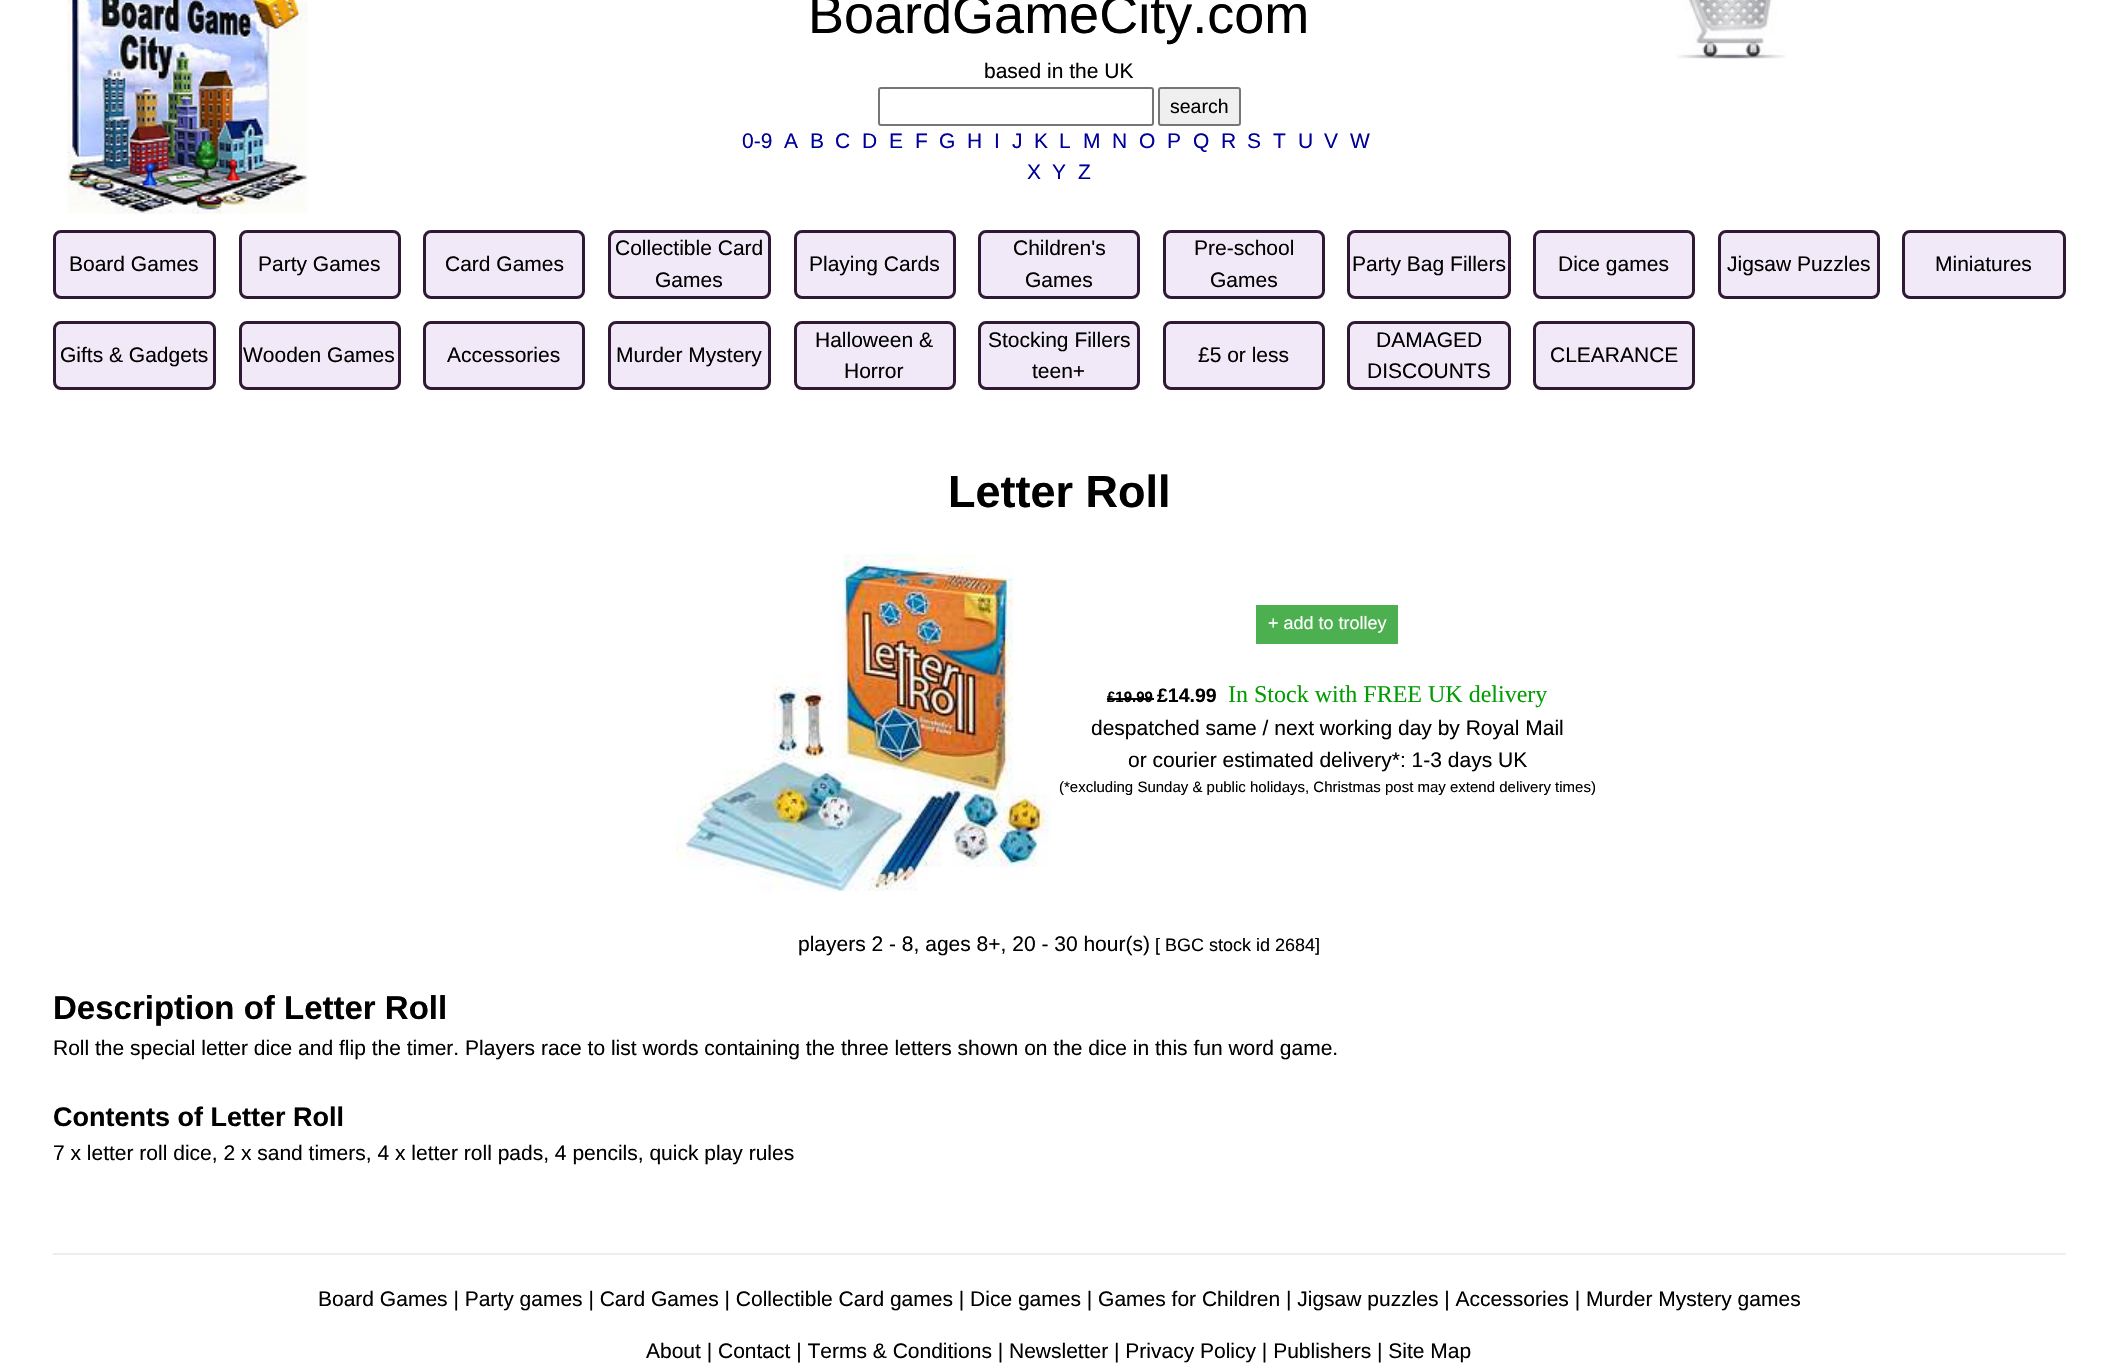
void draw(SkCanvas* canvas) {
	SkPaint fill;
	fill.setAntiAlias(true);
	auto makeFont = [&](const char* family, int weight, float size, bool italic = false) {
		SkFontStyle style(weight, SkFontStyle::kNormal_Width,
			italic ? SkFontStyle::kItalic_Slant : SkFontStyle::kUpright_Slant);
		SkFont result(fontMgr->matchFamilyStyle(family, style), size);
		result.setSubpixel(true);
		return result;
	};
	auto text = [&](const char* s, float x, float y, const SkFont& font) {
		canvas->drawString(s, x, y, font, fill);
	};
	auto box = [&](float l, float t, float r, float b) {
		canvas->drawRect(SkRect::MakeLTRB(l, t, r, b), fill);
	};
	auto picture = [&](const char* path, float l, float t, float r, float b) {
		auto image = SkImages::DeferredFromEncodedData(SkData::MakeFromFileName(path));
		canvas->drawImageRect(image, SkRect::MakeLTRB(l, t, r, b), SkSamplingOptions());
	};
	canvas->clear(0xFFFFFFFF);
	picture("image0.png", 67, 0, 308, 214);
	fill.setStyle(SkPaint::kStroke_Style);
	fill.setStrokeWidth(2);
	fill.setColor(0xFF767676);
	canvas->drawRoundRect(SkRect::MakeLTRB(879, 88, 1153, 125), 2, 2, fill);
	fill.setStyle(SkPaint::kFill_Style);
	fill.setColor(0xFFEFEFEF);
	canvas->drawRoundRect(SkRect::MakeLTRB(1159, 88, 1240, 125), 2, 2, fill);
	fill.setStyle(SkPaint::kStroke_Style);
	fill.setColor(0xFF767676);
	canvas->drawRoundRect(SkRect::MakeLTRB(1159, 88, 1240, 125), 2, 2, fill);
	picture("image1.png", 1676, 0, 1786, 59);
	fill.setStyle(SkPaint::kFill_Style);
	fill.setColor(0xFFF1E9F7);
	canvas->drawRoundRect(SkRect::MakeLTRB(54.5f, 231.5f, 214.5f, 297.5f), 6.5f, 6.5f, fill);
	fill.setStyle(SkPaint::kStroke_Style);
	fill.setStrokeWidth(3);
	fill.setColor(0xFF301934);
	canvas->drawRoundRect(SkRect::MakeLTRB(54.5f, 231.5f, 214.5f, 297.5f), 6.5f, 6.5f, fill);
	fill.setStyle(SkPaint::kFill_Style);
	fill.setColor(0xFFF1E9F7);
	canvas->drawRoundRect(SkRect::MakeLTRB(240.5f, 231.5f, 399.5f, 297.5f), 6.5f, 6.5f, fill);
	fill.setStyle(SkPaint::kStroke_Style);
	fill.setColor(0xFF301934);
	canvas->drawRoundRect(SkRect::MakeLTRB(240.5f, 231.5f, 399.5f, 297.5f), 6.5f, 6.5f, fill);
	fill.setStyle(SkPaint::kFill_Style);
	fill.setColor(0xFFF1E9F7);
	canvas->drawRoundRect(SkRect::MakeLTRB(424.5f, 231.5f, 583.5f, 297.5f), 6.5f, 6.5f, fill);
	fill.setStyle(SkPaint::kStroke_Style);
	fill.setColor(0xFF301934);
	canvas->drawRoundRect(SkRect::MakeLTRB(424.5f, 231.5f, 583.5f, 297.5f), 6.5f, 6.5f, fill);
	fill.setStyle(SkPaint::kFill_Style);
	fill.setColor(0xFFF1E9F7);
	canvas->drawRoundRect(SkRect::MakeLTRB(609.5f, 231.5f, 769.5f, 297.5f), 6.5f, 6.5f, fill);
	fill.setStyle(SkPaint::kStroke_Style);
	fill.setColor(0xFF301934);
	canvas->drawRoundRect(SkRect::MakeLTRB(609.5f, 231.5f, 769.5f, 297.5f), 6.5f, 6.5f, fill);
	fill.setStyle(SkPaint::kFill_Style);
	fill.setColor(0xFFF1E9F7);
	canvas->drawRoundRect(SkRect::MakeLTRB(795.5f, 231.5f, 954.5f, 297.5f), 6.5f, 6.5f, fill);
	fill.setStyle(SkPaint::kStroke_Style);
	fill.setColor(0xFF301934);
	canvas->drawRoundRect(SkRect::MakeLTRB(795.5f, 231.5f, 954.5f, 297.5f), 6.5f, 6.5f, fill);
	fill.setStyle(SkPaint::kFill_Style);
	fill.setColor(0xFFF1E9F7);
	canvas->drawRoundRect(SkRect::MakeLTRB(979.5f, 231.5f, 1138.5f, 297.5f), 6.5f, 6.5f, fill);
	fill.setStyle(SkPaint::kStroke_Style);
	fill.setColor(0xFF301934);
	canvas->drawRoundRect(SkRect::MakeLTRB(979.5f, 231.5f, 1138.5f, 297.5f), 6.5f, 6.5f, fill);
	fill.setStyle(SkPaint::kFill_Style);
	fill.setColor(0xFFF1E9F7);
	canvas->drawRoundRect(SkRect::MakeLTRB(1164.5f, 231.5f, 1323.5f, 297.5f), 6.5f, 6.5f, fill);
	fill.setStyle(SkPaint::kStroke_Style);
	fill.setColor(0xFF301934);
	canvas->drawRoundRect(SkRect::MakeLTRB(1164.5f, 231.5f, 1323.5f, 297.5f), 6.5f, 6.5f, fill);
	fill.setStyle(SkPaint::kFill_Style);
	fill.setColor(0xFFF1E9F7);
	canvas->drawRoundRect(SkRect::MakeLTRB(1348.5f, 231.5f, 1509.5f, 297.5f), 6.5f, 6.5f, fill);
	fill.setStyle(SkPaint::kStroke_Style);
	fill.setColor(0xFF301934);
	canvas->drawRoundRect(SkRect::MakeLTRB(1348.5f, 231.5f, 1509.5f, 297.5f), 6.5f, 6.5f, fill);
	fill.setStyle(SkPaint::kFill_Style);
	fill.setColor(0xFFF1E9F7);
	canvas->drawRoundRect(SkRect::MakeLTRB(1534.5f, 231.5f, 1693.5f, 297.5f), 6.5f, 6.5f, fill);
	fill.setStyle(SkPaint::kStroke_Style);
	fill.setColor(0xFF301934);
	canvas->drawRoundRect(SkRect::MakeLTRB(1534.5f, 231.5f, 1693.5f, 297.5f), 6.5f, 6.5f, fill);
	fill.setStyle(SkPaint::kFill_Style);
	fill.setColor(0xFFF1E9F7);
	canvas->drawRoundRect(SkRect::MakeLTRB(1719.5f, 231.5f, 1878.5f, 297.5f), 6.5f, 6.5f, fill);
	fill.setStyle(SkPaint::kStroke_Style);
	fill.setColor(0xFF301934);
	canvas->drawRoundRect(SkRect::MakeLTRB(1719.5f, 231.5f, 1878.5f, 297.5f), 6.5f, 6.5f, fill);
	fill.setStyle(SkPaint::kFill_Style);
	fill.setColor(0xFFF1E9F7);
	canvas->drawRoundRect(SkRect::MakeLTRB(1903.5f, 231.5f, 2064.5f, 297.5f), 6.5f, 6.5f, fill);
	fill.setStyle(SkPaint::kStroke_Style);
	fill.setColor(0xFF301934);
	canvas->drawRoundRect(SkRect::MakeLTRB(1903.5f, 231.5f, 2064.5f, 297.5f), 6.5f, 6.5f, fill);
	fill.setStyle(SkPaint::kFill_Style);
	fill.setColor(0xFFF1E9F7);
	canvas->drawRoundRect(SkRect::MakeLTRB(54.5f, 322.5f, 214.5f, 388.5f), 6.5f, 6.5f, fill);
	fill.setStyle(SkPaint::kStroke_Style);
	fill.setColor(0xFF301934);
	canvas->drawRoundRect(SkRect::MakeLTRB(54.5f, 322.5f, 214.5f, 388.5f), 6.5f, 6.5f, fill);
	fill.setStyle(SkPaint::kFill_Style);
	fill.setColor(0xFFF1E9F7);
	canvas->drawRoundRect(SkRect::MakeLTRB(240.5f, 322.5f, 399.5f, 388.5f), 6.5f, 6.5f, fill);
	fill.setStyle(SkPaint::kStroke_Style);
	fill.setColor(0xFF301934);
	canvas->drawRoundRect(SkRect::MakeLTRB(240.5f, 322.5f, 399.5f, 388.5f), 6.5f, 6.5f, fill);
	fill.setStyle(SkPaint::kFill_Style);
	fill.setColor(0xFFF1E9F7);
	canvas->drawRoundRect(SkRect::MakeLTRB(424.5f, 322.5f, 583.5f, 388.5f), 6.5f, 6.5f, fill);
	fill.setStyle(SkPaint::kStroke_Style);
	fill.setColor(0xFF301934);
	canvas->drawRoundRect(SkRect::MakeLTRB(424.5f, 322.5f, 583.5f, 388.5f), 6.5f, 6.5f, fill);
	fill.setStyle(SkPaint::kFill_Style);
	fill.setColor(0xFFF1E9F7);
	canvas->drawRoundRect(SkRect::MakeLTRB(609.5f, 322.5f, 769.5f, 388.5f), 6.5f, 6.5f, fill);
	fill.setStyle(SkPaint::kStroke_Style);
	fill.setColor(0xFF301934);
	canvas->drawRoundRect(SkRect::MakeLTRB(609.5f, 322.5f, 769.5f, 388.5f), 6.5f, 6.5f, fill);
	fill.setStyle(SkPaint::kFill_Style);
	fill.setColor(0xFFF1E9F7);
	canvas->drawRoundRect(SkRect::MakeLTRB(795.5f, 322.5f, 954.5f, 388.5f), 6.5f, 6.5f, fill);
	fill.setStyle(SkPaint::kStroke_Style);
	fill.setColor(0xFF301934);
	canvas->drawRoundRect(SkRect::MakeLTRB(795.5f, 322.5f, 954.5f, 388.5f), 6.5f, 6.5f, fill);
	fill.setStyle(SkPaint::kFill_Style);
	fill.setColor(0xFFF1E9F7);
	canvas->drawRoundRect(SkRect::MakeLTRB(979.5f, 322.5f, 1138.5f, 388.5f), 6.5f, 6.5f, fill);
	fill.setStyle(SkPaint::kStroke_Style);
	fill.setColor(0xFF301934);
	canvas->drawRoundRect(SkRect::MakeLTRB(979.5f, 322.5f, 1138.5f, 388.5f), 6.5f, 6.5f, fill);
	fill.setStyle(SkPaint::kFill_Style);
	fill.setColor(0xFFF1E9F7);
	canvas->drawRoundRect(SkRect::MakeLTRB(1164.5f, 322.5f, 1323.5f, 388.5f), 6.5f, 6.5f, fill);
	fill.setStyle(SkPaint::kStroke_Style);
	fill.setColor(0xFF301934);
	canvas->drawRoundRect(SkRect::MakeLTRB(1164.5f, 322.5f, 1323.5f, 388.5f), 6.5f, 6.5f, fill);
	fill.setStyle(SkPaint::kFill_Style);
	fill.setColor(0xFFF1E9F7);
	canvas->drawRoundRect(SkRect::MakeLTRB(1348.5f, 322.5f, 1509.5f, 388.5f), 6.5f, 6.5f, fill);
	fill.setStyle(SkPaint::kStroke_Style);
	fill.setColor(0xFF301934);
	canvas->drawRoundRect(SkRect::MakeLTRB(1348.5f, 322.5f, 1509.5f, 388.5f), 6.5f, 6.5f, fill);
	fill.setStyle(SkPaint::kFill_Style);
	fill.setColor(0xFFF1E9F7);
	canvas->drawRoundRect(SkRect::MakeLTRB(1534.5f, 322.5f, 1693.5f, 388.5f), 6.5f, 6.5f, fill);
	fill.setStyle(SkPaint::kStroke_Style);
	fill.setColor(0xFF301934);
	canvas->drawRoundRect(SkRect::MakeLTRB(1534.5f, 322.5f, 1693.5f, 388.5f), 6.5f, 6.5f, fill);
	picture("image2.png", 676, 554, 1052, 892);
	fill.setStyle(SkPaint::kFill_Style);
	fill.setColor(0xFF4CAF50);
	box(1256, 605, 1398, 644);
	fill.setColor(0xFF000000);
	box(1107, 698, 1154, 700);
	fill.setColor(0xFFEEEEEE);
	box(53, 1253, 2066, 1255);
	auto font1 = makeFont("Liberation Sans", 400, 54);
	fill.setColor(0xFF000000);
	text("BoardGameCity.com", 808, 33, font1);
	auto font2 = makeFont("Liberation Sans", 400, 21);
	text("based in the UK", 984, 78, font2);
	auto font3 = makeFont("Liberation Sans", 400, 19.5f);
	text("search", 1170, 113, font3);
	fill.setColor(0xFF000099);
	text("0-9", 742, 148, font2);
	text("A", 784, 148, font2);
	text("B", 810, 148, font2);
	text("C", 835, 148, font2);
	text("D", 862, 148, font2);
	text("E", 889, 148, font2);
	text("F", 915, 148, font2);
	text("G", 939, 148, font2);
	text("H", 967, 148, font2);
	text("I", 994, 148, font2);
	text("J", 1012, 148, font2);
	text("K", 1034, 148, font2);
	text("L", 1059, 148, font2);
	text("M", 1083, 148, font2);
	text("N", 1112, 148, font2);
	text("O", 1139, 148, font2);
	text("P", 1167, 148, font2);
	text("Q", 1193, 148, font2);
	text("R", 1221, 148, font2);
	text("S", 1247, 148, font2);
	text("T", 1273, 148, font2);
	text("U", 1298, 148, font2);
	text("V", 1324, 148, font2);
	text("W", 1350, 148, font2);
	text("X", 1027, 179, font2);
	text("Y", 1052, 179, font2);
	text("Z", 1078, 179, font2);
	fill.setColor(0xFF000000);
	text("Board Games", 69, 271, font2);
	text("Party Games", 258, 271, font2);
	text("Card Games", 445, 271, font2);
	text("Collectible Card", 615, 255, font2);
	text("Games", 655, 287, font2);
	text("Playing Cards", 809, 271, font2);
	text("Children's", 1013, 255, font2);
	text("Games", 1025, 287, font2);
	text("Pre-school", 1194, 255, font2);
	text("Games", 1210, 287, font2);
	text("Party Bag Fillers", 1352, 271, font2);
	text("Dice games", 1558, 271, font2);
	text("Jigsaw Puzzles", 1727, 271, font2);
	text("Miniatures", 1935, 271, font2);
	text("Gifts & Gadgets", 60, 362, font2);
	text("Wooden Games", 243, 362, font2);
	text("Accessories", 447, 362, font2);
	text("Murder Mystery", 616, 362, font2);
	text("Halloween &", 815, 347, font2);
	text("Horror", 844, 378, font2);
	text("Stocking Fillers", 988, 347, font2);
	text("teen+", 1032, 378, font2);
	text("£5 or less", 1198, 362, font2);
	text("DAMAGED", 1376, 347, font2);
	text("DISCOUNTS", 1367, 378, font2);
	text("CLEARANCE", 1550, 362, font2);
	auto font4 = makeFont("Liberation Sans", 700, 45);
	text("Letter Roll", 948, 507, font4);
	auto font5 = makeFont("Liberation Sans", 400, 18);
	fill.setColor(0xFFFFFFFF);
	text("+ add to trolley", 1268, 629, font5);
	auto font6 = makeFont("Liberation Sans", 700, 15);
	fill.setColor(0xFF000000);
	text("£19.99", 1107, 702, font6);
	auto font7 = makeFont("Liberation Sans", 700, 19.5f);
	text("£14.99", 1157, 702, font7);
	auto font8 = makeFont("Liberation Serif", 400, 24);
	fill.setColor(0xFF049C04);
	text("In Stock with FREE UK delivery", 1228, 702, font8);
	fill.setColor(0xFF000000);
	text("despatched same / next working day by Royal Mail", 1091, 735, font2);
	text("or courier estimated delivery*: 1-3 days UK", 1128, 767, font2);
	auto font9 = makeFont("Liberation Sans", 400, 15);
	text("(*excluding Sunday & public holidays, Christmas post may extend delivery times)", 1059, 792, font9);
	text("players 2 - 8, ages 8+, 20 - 30 hour(s)", 798, 951, font2);
	text("[ BGC stock id 2684]", 1155, 951, font5);
	auto font10 = makeFont("Liberation Sans", 700, 33);
	text("Description of Letter Roll", 53, 1019, font10);
	text("Roll the special letter dice and flip the timer. Players race to list words containing the three letters shown on the dice in this fun word game.", 53, 1055, font2);
	auto font11 = makeFont("Liberation Sans", 700, 27);
	text("Contents of Letter Roll", 53, 1126, font11);
	text("7 x letter roll dice, 2 x sand timers, 4 x letter roll pads, 4 pencils, quick play rules", 53, 1160, font2);
	text("Board Games | Party games | Card Games | Collectible Card games | Dice games | Games for Children | Jigsaw puzzles | Accessories | Murder Mystery games", 318, 1306, font2);
	text("About | Contact | Terms & Conditions | Newsletter | Privacy Policy | Publishers | Site Map", 646, 1358, font2);
}
